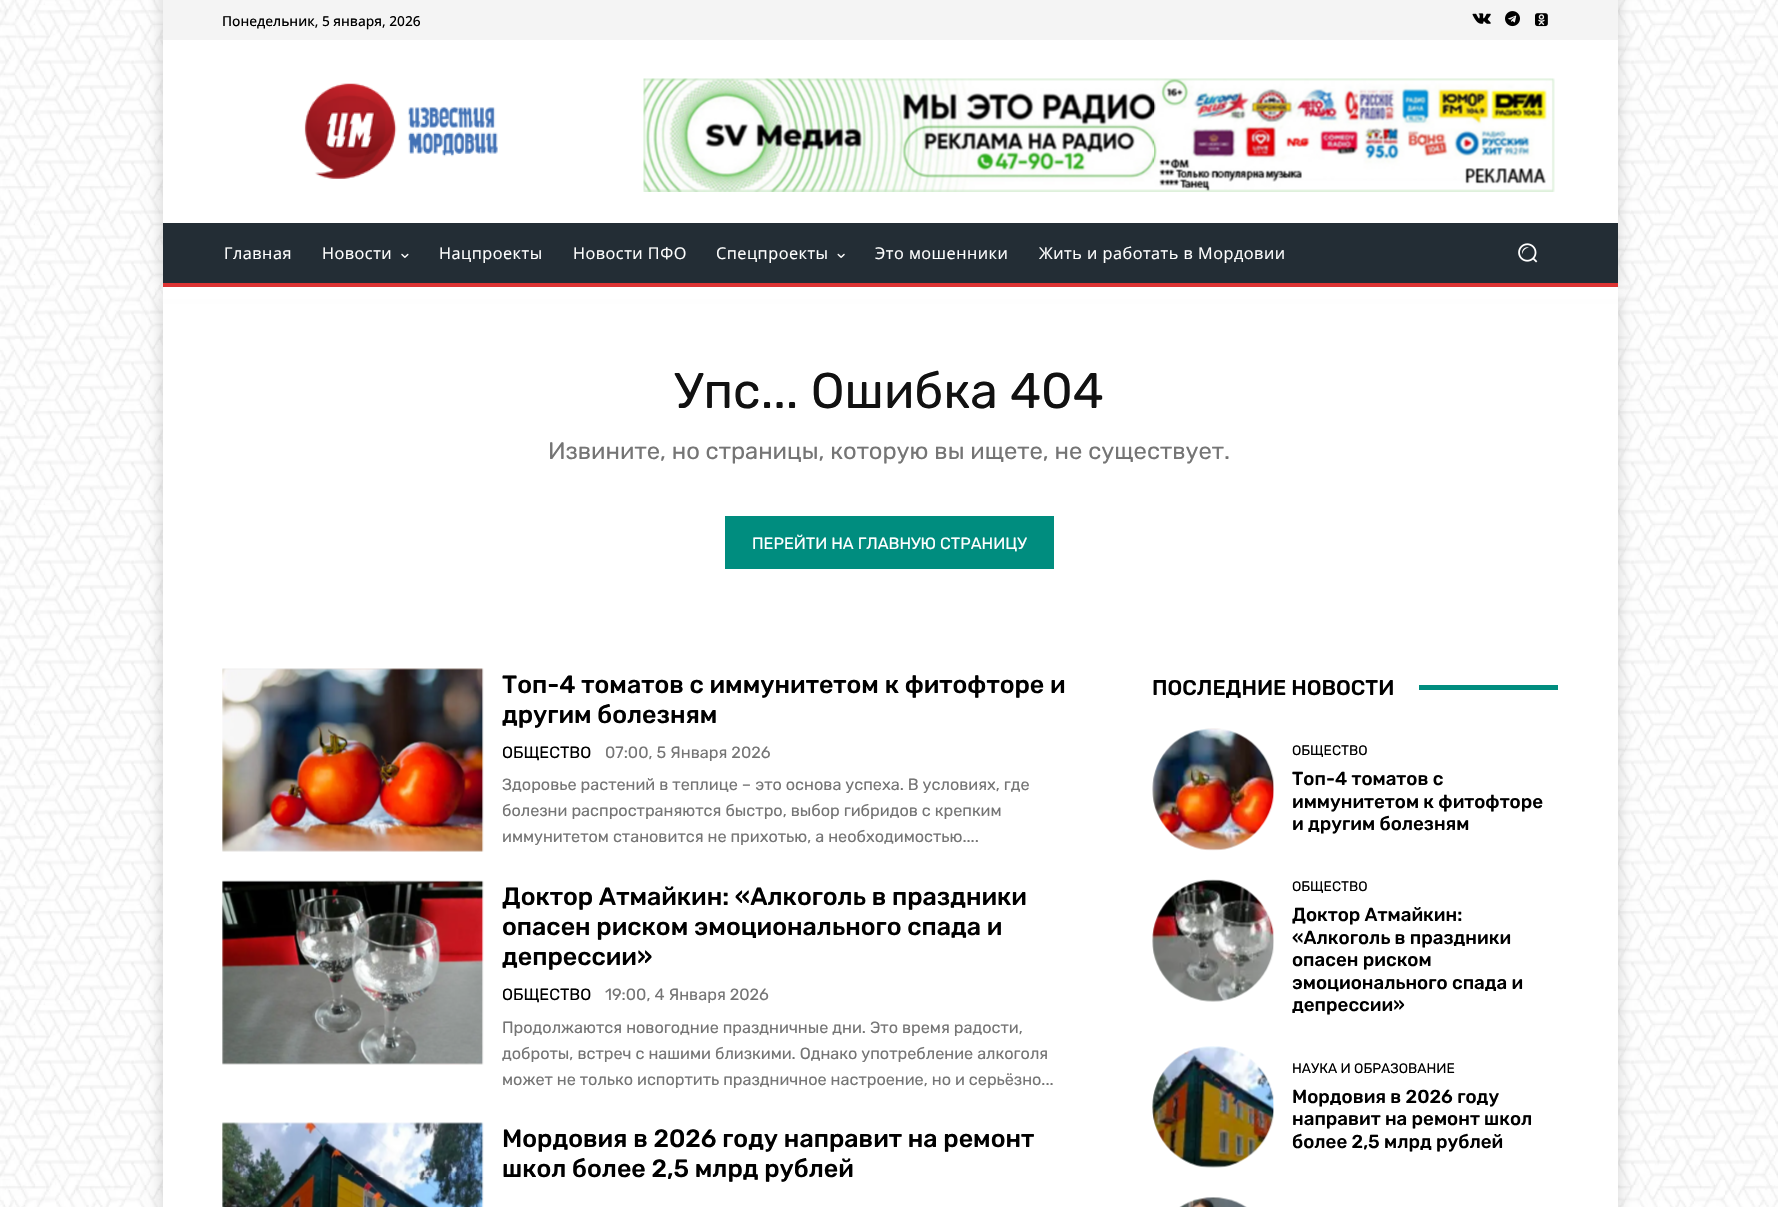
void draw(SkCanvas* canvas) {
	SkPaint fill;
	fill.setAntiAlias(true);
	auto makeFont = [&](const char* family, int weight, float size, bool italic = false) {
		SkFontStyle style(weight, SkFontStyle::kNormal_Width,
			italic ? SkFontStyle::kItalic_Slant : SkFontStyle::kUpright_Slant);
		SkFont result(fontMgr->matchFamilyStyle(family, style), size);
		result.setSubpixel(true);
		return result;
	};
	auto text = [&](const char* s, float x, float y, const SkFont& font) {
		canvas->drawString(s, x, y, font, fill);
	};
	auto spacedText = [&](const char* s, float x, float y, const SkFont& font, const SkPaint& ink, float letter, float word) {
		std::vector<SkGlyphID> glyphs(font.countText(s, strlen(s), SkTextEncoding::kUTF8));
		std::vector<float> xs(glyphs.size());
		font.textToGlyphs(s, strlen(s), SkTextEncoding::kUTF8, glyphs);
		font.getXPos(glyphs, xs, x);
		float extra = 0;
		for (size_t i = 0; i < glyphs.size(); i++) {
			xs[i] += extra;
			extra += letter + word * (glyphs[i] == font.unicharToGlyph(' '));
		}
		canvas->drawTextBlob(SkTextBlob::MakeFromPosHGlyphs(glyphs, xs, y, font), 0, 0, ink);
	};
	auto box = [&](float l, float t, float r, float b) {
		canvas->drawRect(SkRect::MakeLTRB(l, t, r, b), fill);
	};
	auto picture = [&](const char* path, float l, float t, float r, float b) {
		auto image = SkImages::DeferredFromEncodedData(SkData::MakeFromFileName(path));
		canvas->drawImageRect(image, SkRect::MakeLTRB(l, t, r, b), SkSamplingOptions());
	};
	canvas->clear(0xFFFFFFFF);
	picture("image0.png", 0, 0, 1778, 1207);
	fill.setColor(0x1F000000);
	fill.setMaskFilter(SkMaskFilter::MakeBlur(kNormal_SkBlurStyle, 6));
	canvas->drawRect(SkRect::MakeLTRB(159, 295, 1621, 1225), fill);
	fill.setMaskFilter(nullptr);
	fill.setColor(0xFFFFFFFF);
	box(163, 299, 1618, 1207);
	fill.setColor(0x1F000000);
	fill.setMaskFilter(SkMaskFilter::MakeBlur(kNormal_SkBlurStyle, 6));
	canvas->drawRect(SkRect::MakeLTRB(159, -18, 1621, 286), fill);
	fill.setMaskFilter(nullptr);
	fill.setColor(0xFFF4F4F4);
	box(163, 0, 1618, 40);
	picture("image1.png", 1472, 13, 1491, 24);
	picture("image2.png", 1505, 11, 1520, 27);
	picture("image3.png", 1535, 13, 1548, 27);
	fill.setColor(0xFFFFFFFF);
	box(163, 40, 1618, 299);
	picture("image4.png", 304, 83, 498, 179);
	picture("image5.png", 643, 78, 1555, 192);
	fill.setColor(0xFF232D35);
	box(163, 223, 1618, 283);
	picture("image6.png", 401, 253, 409, 258);
	picture("image7.png", 837, 253, 845, 258);
	picture("image8.png", 1518, 243, 1538, 263);
	fill.setColor(0xFFDD3333);
	box(163, 283, 1618, 287);
	fill.setColor(0xFF008D7F);
	box(725, 516, 1054, 569);
	picture("image9.png", 222, 668, 484, 852);
	picture("image10.png", 222, 880, 484, 1065);
	picture("image11.png", 222, 1122, 484, 1207);
	box(1419, 685, 1558, 690);
	picture("image12.png", 1152, 728, 1274, 851);
	picture("image13.png", 1152, 879, 1274, 1002);
	picture("image14.png", 1152, 1046, 1274, 1168);
	picture("image15.png", 1179, 1197, 1247, 1207);
	auto font1 = makeFont("Open Sans", 500, 13.75f);
	fill.setColor(0xFF000000);
	text("Понедельник, 5 января, 2026", 222, 26, font1);
	auto font2 = makeFont("Open Sans", 400, 16.25f);
	fill.setColor(0xFFFFFFFF);
	spacedText("Главная", 224, 259, font2, fill, 0.5f, 0);
	spacedText("Новости", 322, 259, font2, fill, 0.5f, 0);
	spacedText("Нацпроекты", 439, 259, font2, fill, 0.5f, 0);
	spacedText("Новости ПФО", 573, 259, font2, fill, 0.5f, 0);
	spacedText("Спецпроекты", 716, 259, font2, fill, 0.5f, 0);
	spacedText("Это мошенники", 875, 259, font2, fill, 0.5f, 0);
	spacedText("Жить и работать в Мордовии", 1039, 259, font2, fill, 0.5f, 0);
	auto font3 = makeFont("Rubik", 400, 50);
	fill.setColor(0xFF111111);
	text("Упс... Ошибка 404", 674, 408, font3);
	auto font4 = makeFont("Rubik", 400, 23.75f);
	fill.setColor(0xFF757575);
	text("Извините, но страницы, которую вы ищете, не существует.", 548, 459, font4);
	auto font5 = makeFont("Rubik", 400, 16.25f);
	fill.setColor(0xFFFFFFFF);
	text("ПЕРЕЙТИ НА ГЛАВНУЮ СТРАНИЦУ", 752, 549, font5);
	auto font6 = makeFont("Rubik", 500, 25);
	fill.setColor(0xFF000000);
	text("Топ-4 томатов с иммунитетом к фитофторе и", 502, 693, font6);
	text("другим болезням", 502, 723, font6);
	text("ОБЩЕСТВО", 502, 758, font5);
	fill.setColor(0xFF757575);
	text("07:00, 5 Января 2026", 605, 758, font5);
	text("Здоровье растений в теплице – это основа успеха. В условиях, где", 502, 790, font5);
	text("болезни распространяются быстро, выбор гибридов с крепким", 502, 816, font5);
	text("иммунитетом становится не прихотью, а необходимостью....", 502, 842, font5);
	fill.setColor(0xFF000000);
	text("Доктор Атмайкин: «Алкоголь в праздники", 502, 905, font6);
	text("опасен риском эмоционального спада и", 502, 935, font6);
	text("депрессии»", 502, 965, font6);
	text("ОБЩЕСТВО", 502, 1000, font5);
	fill.setColor(0xFF757575);
	text("19:00, 4 Января 2026", 605, 1000, font5);
	text("Продолжаются новогодние праздничные дни. Это время радости,", 502, 1033, font5);
	text("доброты, встреч с нашими близкими. Однако употребление алкоголя", 502, 1059, font5);
	text("может не только испортить праздничное настроение, но и серьёзно...", 502, 1085, font5);
	fill.setColor(0xFF000000);
	text("Мордовия в 2026 году направит на ремонт", 502, 1147, font6);
	text("школ более 2,5 млрд рублей", 502, 1177, font6);
	auto font7 = makeFont("Rubik", 500, 21.25f);
	text("ПОСЛЕДНИЕ НОВОСТИ", 1152, 695, font7);
	auto font8 = makeFont("Rubik", 400, 13.75f);
	text("ОБЩЕСТВО", 1292, 755, font8);
	auto font9 = makeFont("Rubik", 500, 18.75f);
	text("Топ-4 томатов с", 1292, 785, font9);
	text("иммунитетом к фитофторе", 1292, 808, font9);
	text("и другим болезням", 1292, 830, font9);
	text("ОБЩЕСТВО", 1292, 891, font8);
	text("Доктор Атмайкин:", 1292, 921, font9);
	text("«Алкоголь в праздники", 1292, 944, font9);
	text("опасен риском", 1292, 966, font9);
	text("эмоционального спада и", 1292, 989, font9);
	text("депрессии»", 1292, 1011, font9);
	text("НАУКА И ОБРАЗОВАНИЕ", 1292, 1073, font8);
	text("Мордовия в 2026 году", 1292, 1103, font9);
	text("направит на ремонт школ", 1292, 1125, font9);
	text("более 2,5 млрд рублей", 1292, 1148, font9);
}
